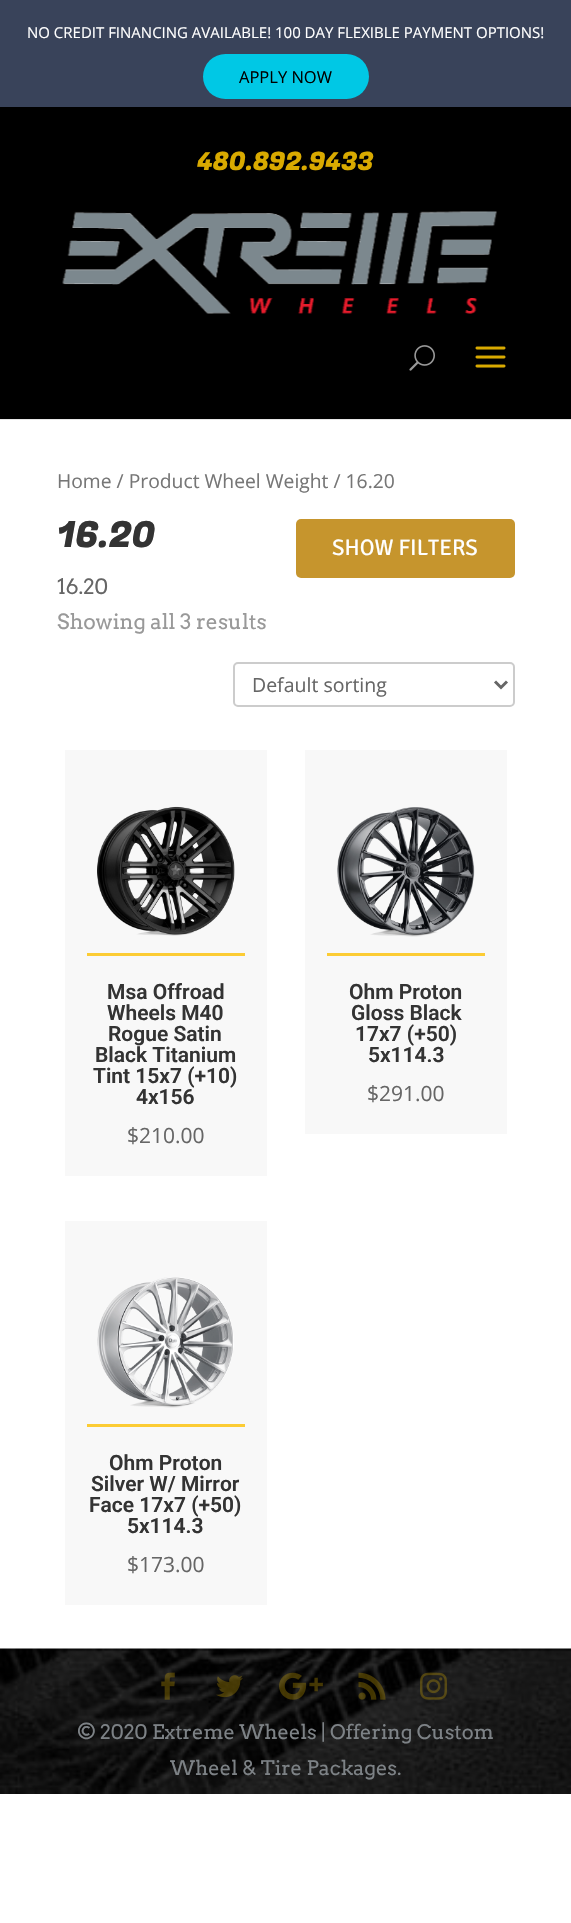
void draw(SkCanvas* canvas) {
	SkPaint fill;
	fill.setAntiAlias(true);
	auto makeFont = [&](const char* family, int weight, float size, bool italic = false) {
		SkFontStyle style(weight, SkFontStyle::kNormal_Width,
			italic ? SkFontStyle::kItalic_Slant : SkFontStyle::kUpright_Slant);
		SkFont result(fontMgr->matchFamilyStyle(family, style), size);
		result.setSubpixel(true);
		return result;
	};
	auto text = [&](const char* s, float x, float y, const SkFont& font) {
		canvas->drawString(s, x, y, font, fill);
	};
	auto box = [&](float l, float t, float r, float b) {
		canvas->drawRect(SkRect::MakeLTRB(l, t, r, b), fill);
	};
	auto roundBox = [&](float l, float t, float r, float b, float radius) {
		canvas->drawRoundRect(SkRect::MakeLTRB(l, t, r, b), radius, radius, fill);
	};
	auto picture = [&](const char* path, float l, float t, float r, float b) {
		auto image = SkImages::DeferredFromEncodedData(SkData::MakeFromFileName(path));
		canvas->drawImageRect(image, SkRect::MakeLTRB(l, t, r, b), SkSamplingOptions());
	};
	canvas->clear(0xFFFFFFFF);
	fill.setColor(0xFFE6E6E6);
	canvas->drawPath(SkPathBuilder().moveTo(0, 418).lineTo(0, 420).lineTo(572, 420).lineTo(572, 2).lineTo(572, 418).close().detach(), fill);
	fill.setColor(0xFF000000);
	box(0, 107, 571, 419);
	fill.setColor(0xFF39435A);
	box(0, 0, 571, 107);
	fill.setColor(0xFF00C8E5);
	roundBox(203, 54, 369, 99, 22.5f);
	picture("image0.png", 62, 211, 497, 314);
	picture("image1.png", 409, 345, 435, 371);
	picture("image2.png", 475, 346, 506, 368);
	fill.setColor(0xFFC6952D);
	roundBox(296, 519, 515, 578, 5);
	fill.setStyle(SkPaint::kStroke_Style);
	fill.setStrokeWidth(2);
	fill.setColor(0xFFCCCCCC);
	canvas->drawRoundRect(SkRect::MakeLTRB(234, 663, 514, 706), 4, 4, fill);
	fill.setStrokeWidth(3);
	fill.setColor(0xFF666666);
	canvas->drawPath(SkPathBuilder().moveTo(495, 681.5f).lineTo(501, 687.5f).lineTo(507, 681.5f).detach(), fill);
	fill.setStyle(SkPaint::kFill_Style);
	fill.setColor(0xFFF8F8F8);
	box(65, 750, 267, 1176);
	fill.setColor(0xFFFCCC34);
	box(87, 953, 245, 956);
	picture("image3.png", 97, 806, 235, 936);
	fill.setColor(0xFFF8F8F8);
	box(305, 750, 507, 1134);
	fill.setColor(0xFFFCCC34);
	box(327, 953, 485, 956);
	picture("image4.png", 337, 807, 475, 937);
	fill.setColor(0xFFF8F8F8);
	box(65, 1221, 267, 1605);
	fill.setColor(0xFFFCCC34);
	box(87, 1424, 245, 1427);
	picture("image5.png", 97, 1277, 234, 1408);
	picture("image6.png", 0, 1648, 571, 1794);
	picture("image7.png", 161, 1672, 175, 1700);
	picture("image8.png", 216, 1675, 243, 1698);
	picture("image9.png", 279, 1672, 323, 1700);
	picture("image10.png", 358, 1672, 386, 1700);
	picture("image11.png", 420, 1672, 447, 1700);
	auto font1 = makeFont("Open Sans", 400, 15);
	fill.setColor(0xFFFFFFFF);
	text("NO CREDIT FINANCING AVAILABLE! 100 DAY FLEXIBLE PAYMENT OPTIONS!", 27, 38, font1);
	auto font2 = makeFont("Open Sans", 400, 16.5f);
	fill.setColor(0xFF000000);
	text("APPLY NOW", 239, 83, font2);
	auto font3 = makeFont("Fugaz One", 400, 25.5f);
	fill.setColor(0xFFD9AA00);
	text("480.892.9433", 197, 170, font3);
	auto font4 = makeFont("Open Sans", 400, 19.3f);
	fill.setColor(0xFF767676);
	text("Home / Product Wheel Weight / 16.20", 57, 488, font4);
	auto font5 = makeFont("Fugaz One", 400, 36);
	fill.setColor(0xFF333333);
	text("16.20", 57, 547, font5);
	auto font6 = makeFont("Arvo", 400, 21);
	fill.setColor(0xFF666666);
	text("16.20", 57, 594, font6);
	auto font7 = makeFont("Signika Negative", 300, 22.5f);
	fill.setColor(0xFFFFFFFF);
	text("SHOW FILTERS", 332, 555, font7);
	fill.setColor(0xFF999999);
	text("Showing all 3 results", 57, 629, font6);
	auto font8 = makeFont("Open Sans", 400, 19.5f);
	fill.setColor(0xFF666666);
	text("Default sorting", 252, 692, font8);
	auto font9 = makeFont("Roboto", 600, 21);
	fill.setColor(0xFF333333);
	text("Msa Offroad", 107, 999, font9);
	text("Wheels M40", 107, 1020, font9);
	text("Rogue Satin", 108, 1041, font9);
	text("Black Titanium", 95, 1062, font9);
	text("Tint 15x7 (+10)", 93, 1083, font9);
	text("4x156", 136, 1104, font9);
	auto font10 = makeFont("Open Sans", 400, 21);
	fill.setColor(0xFF666666);
	text("$210.00", 127, 1143, font10);
	fill.setColor(0xFF333333);
	text("Ohm Proton", 349, 999, font9);
	text("Gloss Black", 351, 1020, font9);
	text("17x7 (+50)", 355, 1041, font9);
	text("5x114.3", 368, 1062, font9);
	fill.setColor(0xFF666666);
	text("$291.00", 367, 1101, font10);
	fill.setColor(0xFF333333);
	text("Ohm Proton", 109, 1470, font9);
	text("Silver W/ Mirror", 91, 1491, font9);
	text("Face 17x7 (+50)", 89, 1512, font9);
	text("5x114.3", 127, 1533, font9);
	fill.setColor(0xFF666666);
	text("$173.00", 127, 1572, font10);
	auto font11 = makeFont("Arvo", 400, 20);
	fill.setColor(0xFF7D8286);
	text("© 2020 Extreme Wheels | Offering Custom", 77, 1739, font11);
	text("Wheel & Tire Packages.", 170, 1775, font11);
}
